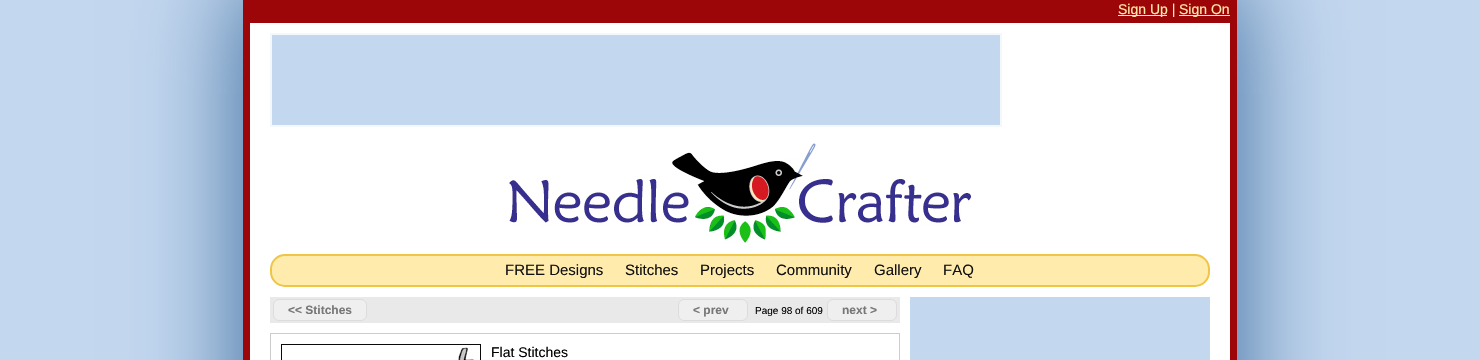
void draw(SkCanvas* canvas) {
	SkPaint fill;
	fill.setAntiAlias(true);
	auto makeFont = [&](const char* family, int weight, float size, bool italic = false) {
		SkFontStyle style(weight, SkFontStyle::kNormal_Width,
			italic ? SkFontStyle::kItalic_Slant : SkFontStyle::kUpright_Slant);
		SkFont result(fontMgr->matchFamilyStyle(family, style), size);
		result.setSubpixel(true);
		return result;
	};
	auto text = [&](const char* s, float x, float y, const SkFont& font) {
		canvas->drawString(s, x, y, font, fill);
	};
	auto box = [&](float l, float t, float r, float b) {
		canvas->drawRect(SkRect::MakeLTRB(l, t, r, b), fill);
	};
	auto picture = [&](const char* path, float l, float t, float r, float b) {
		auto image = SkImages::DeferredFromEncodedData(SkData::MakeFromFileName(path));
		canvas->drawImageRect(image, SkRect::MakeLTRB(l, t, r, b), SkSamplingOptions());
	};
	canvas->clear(0xFFC3D7EF);
	fill.setColor(0xFF336699);
	fill.setMaskFilter(SkMaskFilter::MakeBlur(kNormal_SkBlurStyle, 50));
	canvas->drawRect(SkRect::MakeLTRB(243, -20, 1237, 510), fill);
	fill.setMaskFilter(nullptr);
	fill.setColor(0xFFFFFFFF);
	box(250, 23, 1230, 360);
	fill.setColor(0xFF9D0609);
	box(243, 0, 1237, 1);
	box(1230, 0, 1237, 360);
	box(243, 0, 250, 360);
	box(250, 1, 1230, 23);
	fill.setColor(0xFFFFEBAC);
	box(1118, 15, 1167, 16);
	box(1179, 15, 1230, 16);
	fill.setStyle(SkPaint::kStroke_Style);
	fill.setStrokeWidth(2);
	fill.setColor(0xFFF4F8FA);
	canvas->drawRect(SkRect::MakeLTRB(271, 34, 1001, 126), fill);
	fill.setStyle(SkPaint::kFill_Style);
	fill.setColor(0xFFC3D7EF);
	box(272, 35, 1000, 125);
	picture("image0.png", 509, 143, 972, 244);
	fill.setColor(0xFFFFEBAC);
	canvas->drawRoundRect(SkRect::MakeLTRB(271, 255, 1209, 286), 14, 14, fill);
	fill.setStyle(SkPaint::kStroke_Style);
	fill.setColor(0xFFEEC544);
	canvas->drawRoundRect(SkRect::MakeLTRB(271, 255, 1209, 286), 14, 14, fill);
	fill.setStyle(SkPaint::kFill_Style);
	fill.setColor(0xFFE9E9E9);
	box(270, 297, 900, 323);
	fill.setColor(0xFFEFEFEF);
	canvas->drawRoundRect(SkRect::MakeLTRB(273.5f, 299.5f, 366.5f, 320.5f), 5.5f, 5.5f, fill);
	fill.setStyle(SkPaint::kStroke_Style);
	fill.setStrokeWidth(1);
	fill.setColor(0xFFDCDCDC);
	canvas->drawRoundRect(SkRect::MakeLTRB(273.5f, 299.5f, 366.5f, 320.5f), 5.5f, 5.5f, fill);
	fill.setStyle(SkPaint::kFill_Style);
	fill.setColor(0xFFEFEFEF);
	canvas->drawRoundRect(SkRect::MakeLTRB(678.5f, 299.5f, 747.5f, 320.5f), 5.5f, 5.5f, fill);
	fill.setStyle(SkPaint::kStroke_Style);
	fill.setColor(0xFFDCDCDC);
	canvas->drawRoundRect(SkRect::MakeLTRB(678.5f, 299.5f, 747.5f, 320.5f), 5.5f, 5.5f, fill);
	fill.setStyle(SkPaint::kFill_Style);
	fill.setColor(0xFFEFEFEF);
	canvas->drawRoundRect(SkRect::MakeLTRB(827.5f, 299.5f, 896.5f, 320.5f), 5.5f, 5.5f, fill);
	fill.setStyle(SkPaint::kStroke_Style);
	fill.setColor(0xFFDCDCDC);
	canvas->drawRoundRect(SkRect::MakeLTRB(827.5f, 299.5f, 896.5f, 320.5f), 5.5f, 5.5f, fill);
	fill.setColor(0xFFCCCCCC);
	canvas->drawRect(SkRect::MakeLTRB(270.5f, 333.5f, 899.5f, 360.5f), fill);
	picture("image1.png", 281, 344, 481, 360);
	fill.setStyle(SkPaint::kFill_Style);
	fill.setColor(0xFFC3D7EF);
	box(910, 297, 1210, 360);
	auto font1 = makeFont("Liberation Sans", 400, 14);
	fill.setColor(0xFFFFEBAC);
	text("Sign Up |", 1118, 14, font1);
	text("Sign On", 1179, 14, font1);
	auto font2 = makeFont("Liberation Sans", 400, 15);
	fill.setColor(0xFF111111);
	text("FREE Designs", 505, 275, font2);
	text("Stitches", 625, 275, font2);
	text("Projects", 700, 275, font2);
	text("Community", 776, 275, font2);
	text("Gallery", 874, 275, font2);
	text("FAQ", 943, 275, font2);
	auto font3 = makeFont("Liberation Sans", 700, 12);
	fill.setColor(0xFF777777);
	text("<< Stitches", 288, 314, font3);
	text("< prev", 693, 314, font3);
	auto font4 = makeFont("Liberation Sans", 400, 10);
	fill.setColor(0xFF000000);
	text("Page 98 of 609", 755, 314, font4);
	fill.setColor(0xFF777777);
	text("next >", 842, 314, font3);
	fill.setColor(0xFF000000);
	text("Flat Stitches", 491, 357, font1);
}
